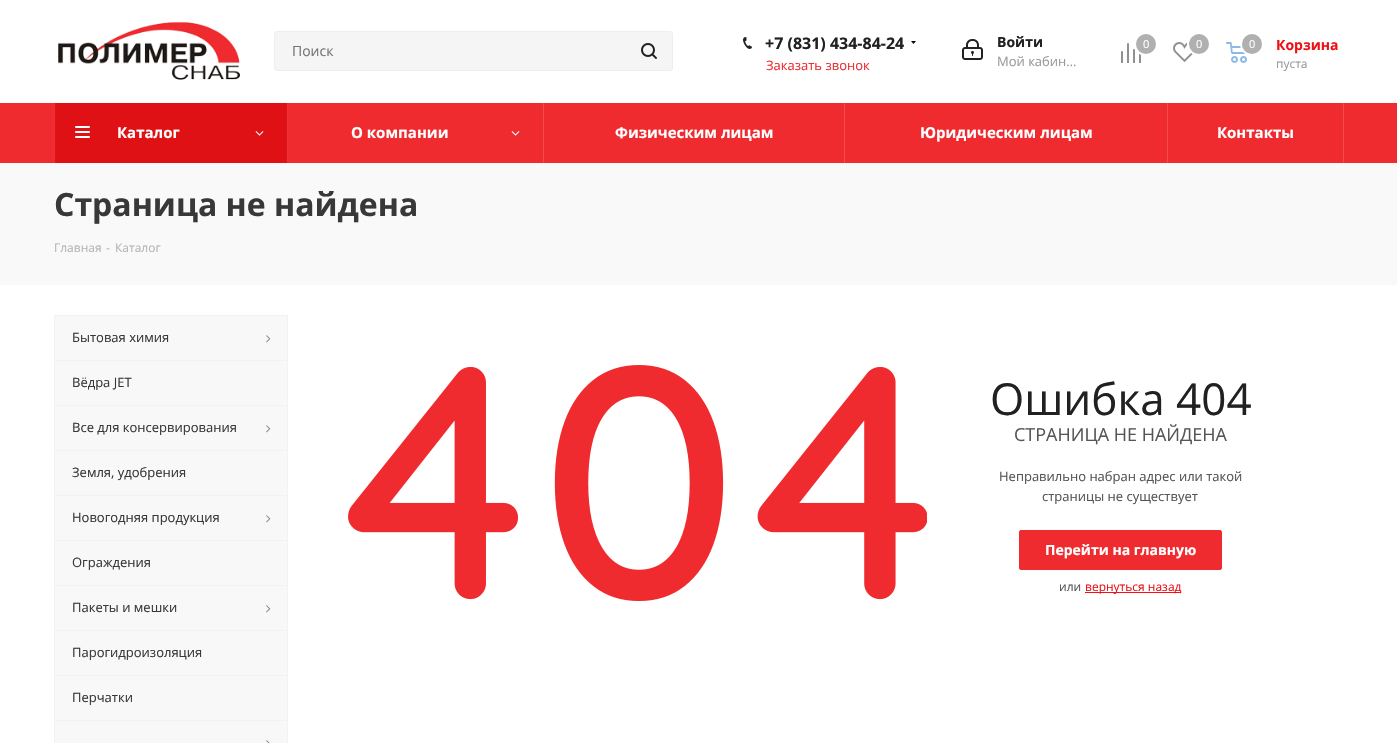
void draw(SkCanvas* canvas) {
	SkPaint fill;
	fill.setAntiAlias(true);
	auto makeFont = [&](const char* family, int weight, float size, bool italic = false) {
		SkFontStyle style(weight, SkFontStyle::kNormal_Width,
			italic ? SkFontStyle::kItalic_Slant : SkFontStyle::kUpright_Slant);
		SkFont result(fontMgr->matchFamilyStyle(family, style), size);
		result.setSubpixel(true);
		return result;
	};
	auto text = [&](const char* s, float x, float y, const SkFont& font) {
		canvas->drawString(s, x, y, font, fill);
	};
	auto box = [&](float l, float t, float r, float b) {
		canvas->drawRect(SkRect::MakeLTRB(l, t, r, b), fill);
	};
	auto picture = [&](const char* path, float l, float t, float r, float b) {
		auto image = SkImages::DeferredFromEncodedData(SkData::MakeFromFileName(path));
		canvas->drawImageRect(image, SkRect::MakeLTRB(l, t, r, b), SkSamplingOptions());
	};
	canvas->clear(0xFFFFFFFF);
	picture("image0.png", 58, 22, 240, 80);
	fill.setColor(0xFFF5F5F5);
	canvas->drawRoundRect(SkRect::MakeLTRB(274.5f, 31.5f, 672.5f, 70.5f), 2.5f, 2.5f, fill);
	fill.setStyle(SkPaint::kStroke_Style);
	fill.setStrokeWidth(1);
	fill.setColor(0xFFEEEEEE);
	canvas->drawRoundRect(SkRect::MakeLTRB(274.5f, 31.5f, 672.5f, 70.5f), 2.5f, 2.5f, fill);
	picture("image1.png", 641, 43, 657, 59);
	picture("image2.png", 743, 37, 752, 49);
	picture("image3.png", 911, 41, 916, 44);
	picture("image4.png", 962, 39, 983, 60);
	picture("image5.png", 1121, 43, 1141, 63);
	fill.setStrokeWidth(2);
	fill.setColor(0xFFFFFFFF);
	canvas->drawCircle(1146, 44, 11, fill);
	fill.setStyle(SkPaint::kFill_Style);
	fill.setColor(0xFFB0B0B0);
	canvas->drawCircle(1146, 44, 10, fill);
	picture("image6.png", 1173, 42, 1195, 62);
	fill.setStyle(SkPaint::kStroke_Style);
	fill.setColor(0xFFFFFFFF);
	canvas->drawCircle(1199, 44, 11, fill);
	fill.setStyle(SkPaint::kFill_Style);
	fill.setColor(0xFFB0B0B0);
	canvas->drawCircle(1199, 44, 10, fill);
	picture("image7.png", 1226, 42, 1248, 63);
	fill.setStyle(SkPaint::kStroke_Style);
	fill.setColor(0xFFFFFFFF);
	canvas->drawCircle(1252, 44, 11, fill);
	fill.setStyle(SkPaint::kFill_Style);
	fill.setColor(0xFFB0B0B0);
	canvas->drawCircle(1252, 44, 10, fill);
	fill.setColor(0xFFEF2B2F);
	box(0, 103, 1397, 163);
	fill.setColor(0xFFE53538);
	box(54, 103, 55, 163);
	fill.setColor(0xFFE01115);
	box(55, 103, 287, 163);
	fill.setColor(0xFFE53538);
	box(287, 103, 288, 163);
	picture("image8.png", 75, 126, 90, 138);
	picture("image9.png", 255, 131, 264, 136);
	fill.setColor(0xFFF14B4E);
	box(543, 103, 544, 163);
	picture("image10.png", 511, 131, 520, 136);
	box(844, 103, 845, 163);
	box(1167, 103, 1168, 163);
	box(1343, 103, 1344, 163);
	fill.setColor(0xFFF9F9F9);
	box(0, 163, 1397, 285);
	fill.setColor(0xFFF8F8F9);
	box(55, 316, 287, 360);
	fill.setColor(0xFFF2F2F2);
	box(54, 315, 288, 316);
	box(287, 315, 288, 360);
	box(54, 315, 55, 360);
	picture("image11.png", 266, 335, 271, 343);
	fill.setColor(0xFFF8F8F9);
	box(55, 361, 287, 405);
	fill.setColor(0xFFF2F2F2);
	box(54, 360, 288, 361);
	box(287, 360, 288, 405);
	box(54, 360, 55, 405);
	fill.setColor(0xFFF8F8F9);
	box(55, 406, 287, 450);
	fill.setColor(0xFFF2F2F2);
	box(54, 405, 288, 406);
	box(287, 405, 288, 450);
	box(54, 405, 55, 450);
	picture("image11.png", 266, 425, 271, 433);
	fill.setColor(0xFFF8F8F9);
	box(55, 451, 287, 495);
	fill.setColor(0xFFF2F2F2);
	box(54, 450, 288, 451);
	box(287, 450, 288, 495);
	box(54, 450, 55, 495);
	fill.setColor(0xFFF8F8F9);
	box(55, 496, 287, 540);
	fill.setColor(0xFFF2F2F2);
	box(54, 495, 288, 496);
	box(287, 495, 288, 540);
	box(54, 495, 55, 540);
	picture("image11.png", 266, 515, 271, 523);
	fill.setColor(0xFFF8F8F9);
	box(55, 541, 287, 585);
	fill.setColor(0xFFF2F2F2);
	box(54, 540, 288, 541);
	box(287, 540, 288, 585);
	box(54, 540, 55, 585);
	fill.setColor(0xFFF8F8F9);
	box(55, 586, 287, 630);
	fill.setColor(0xFFF2F2F2);
	box(54, 585, 288, 586);
	box(287, 585, 288, 630);
	box(54, 585, 55, 630);
	picture("image11.png", 266, 605, 271, 613);
	fill.setColor(0xFFF8F8F9);
	box(55, 631, 287, 675);
	fill.setColor(0xFFF2F2F2);
	box(54, 630, 288, 631);
	box(287, 630, 288, 675);
	box(54, 630, 55, 675);
	fill.setColor(0xFFF8F8F9);
	box(55, 676, 287, 720);
	fill.setColor(0xFFF2F2F2);
	box(54, 675, 288, 676);
	box(287, 675, 288, 720);
	box(54, 675, 55, 720);
	fill.setColor(0xFFF8F8F9);
	box(55, 721, 287, 743);
	fill.setColor(0xFFF2F2F2);
	box(54, 720, 288, 721);
	box(287, 720, 288, 743);
	box(54, 720, 55, 743);
	picture("image12.png", 266, 740, 270, 743);
	picture("image13.png", 348, 365, 927, 601);
	fill.setColor(0xFFEF2B2F);
	canvas->drawRoundRect(SkRect::MakeLTRB(1019.5f, 530.5f, 1221.5f, 569.5f), 1.5f, 1.5f, fill);
	fill.setStyle(SkPaint::kStroke_Style);
	fill.setStrokeWidth(1);
	canvas->drawRoundRect(SkRect::MakeLTRB(1019.5f, 530.5f, 1221.5f, 569.5f), 1.5f, 1.5f, fill);
	fill.setStyle(SkPaint::kFill_Style);
	fill.setColor(0xFFEE1217);
	box(1085, 592, 1181, 593);
	auto font1 = makeFont("Open Sans", 400, 14);
	fill.setColor(0xFF757575);
	text("Поиск", 292, 56, font1);
	auto font2 = makeFont("Open Sans", 700, 16);
	fill.setColor(0xFF212121);
	text("+7 (831) 434-84-24", 765, 49, font2);
	auto font3 = makeFont("Open Sans", 400, 13);
	fill.setColor(0xFFEF2B2F);
	text("Заказать звонок", 766, 70, font3);
	auto font4 = makeFont("Open Sans", 700, 14);
	fill.setColor(0xFF212121);
	text("Войти", 997, 47, font4);
	fill.setColor(0xFF999999);
	text("Мой кабин…", 997, 66, font3);
	auto font5 = makeFont("Open Sans", 400, 11);
	fill.setColor(0xFFFFFFFF);
	text("0", 1143, 48, font5);
	text("0", 1196, 48, font5);
	text("0", 1249, 48, font5);
	fill.setColor(0xFFEE1217);
	text("Корзина", 1276, 50, font4);
	auto font6 = makeFont("Open Sans", 400, 12);
	fill.setColor(0xFF999999);
	text("пуста", 1276, 68, font6);
	auto font7 = makeFont("Open Sans", 700, 15);
	fill.setColor(0xFFFFFFFF);
	text("Каталог", 117, 138, font7);
	text("О компании", 351, 138, font7);
	text("Физическим лицам", 615, 138, font7);
	text("Юридическим лицам", 920, 138, font7);
	text("Контакты", 1217, 138, font7);
	auto font8 = makeFont("Open Sans", 700, 32);
	fill.setColor(0xFF383838);
	text("Страница не найдена", 54, 216, font8);
	fill.setColor(0xFFB6B5B5);
	text("Главная", 54, 252, font6);
	text("-", 106, 252, font6);
	text("Каталог", 115, 252, font6);
	fill.setColor(0xFF383838);
	text("Бытовая химия", 72, 342, font3);
	text("Вёдра JET", 72, 387, font3);
	text("Все для консервирования", 72, 432, font3);
	text("Земля, удобрения", 72, 477, font3);
	text("Новогодняя продукция", 72, 522, font3);
	text("Ограждения", 72, 567, font3);
	text("Пакеты и мешки", 72, 612, font3);
	text("Парогидроизоляция", 72, 657, font3);
	text("Перчатки", 72, 702, font3);
	auto font9 = makeFont("Open Sans", 400, 44);
	fill.setColor(0xFF212121);
	text("Ошибка 404", 990, 415, font9);
	auto font10 = makeFont("Open Sans", 400, 18);
	fill.setColor(0xFF555555);
	text("СТРАНИЦА НЕ НАЙДЕНА", 1014, 441, font10);
	text("Неправильно набран адрес или такой", 999, 481, font3);
	text("страницы не существует", 1042, 501, font3);
	fill.setColor(0xFFFFFFFF);
	text("Перейти на главную", 1045, 555, font4);
	fill.setColor(0xFF555555);
	text("или", 1059, 591, font6);
	fill.setColor(0xFFEE1217);
	text("вернуться назад", 1085, 591, font6);
}
